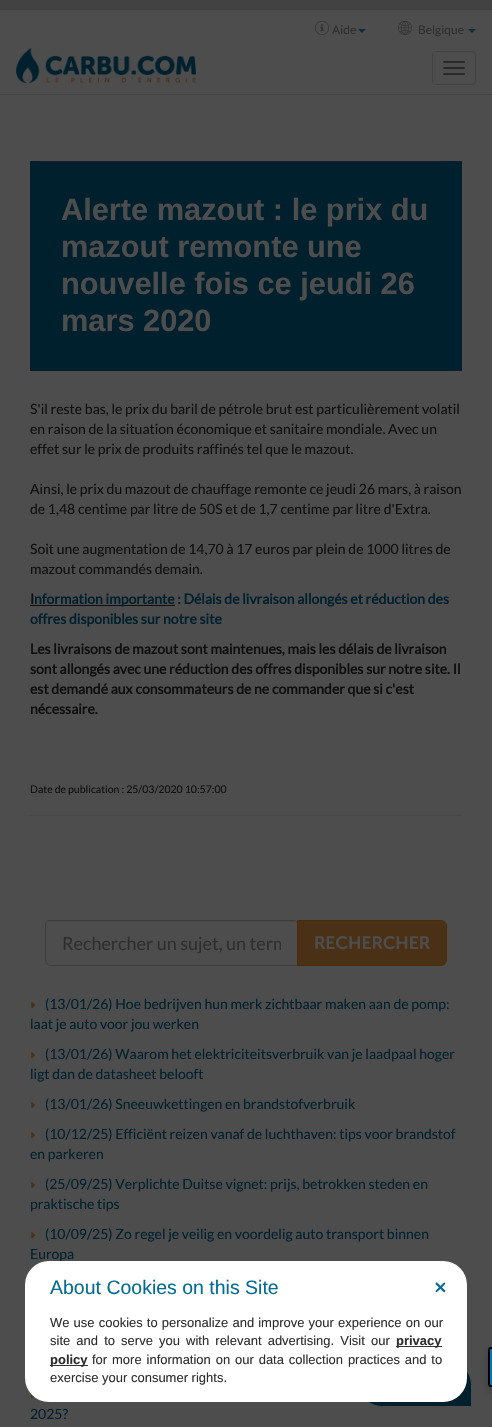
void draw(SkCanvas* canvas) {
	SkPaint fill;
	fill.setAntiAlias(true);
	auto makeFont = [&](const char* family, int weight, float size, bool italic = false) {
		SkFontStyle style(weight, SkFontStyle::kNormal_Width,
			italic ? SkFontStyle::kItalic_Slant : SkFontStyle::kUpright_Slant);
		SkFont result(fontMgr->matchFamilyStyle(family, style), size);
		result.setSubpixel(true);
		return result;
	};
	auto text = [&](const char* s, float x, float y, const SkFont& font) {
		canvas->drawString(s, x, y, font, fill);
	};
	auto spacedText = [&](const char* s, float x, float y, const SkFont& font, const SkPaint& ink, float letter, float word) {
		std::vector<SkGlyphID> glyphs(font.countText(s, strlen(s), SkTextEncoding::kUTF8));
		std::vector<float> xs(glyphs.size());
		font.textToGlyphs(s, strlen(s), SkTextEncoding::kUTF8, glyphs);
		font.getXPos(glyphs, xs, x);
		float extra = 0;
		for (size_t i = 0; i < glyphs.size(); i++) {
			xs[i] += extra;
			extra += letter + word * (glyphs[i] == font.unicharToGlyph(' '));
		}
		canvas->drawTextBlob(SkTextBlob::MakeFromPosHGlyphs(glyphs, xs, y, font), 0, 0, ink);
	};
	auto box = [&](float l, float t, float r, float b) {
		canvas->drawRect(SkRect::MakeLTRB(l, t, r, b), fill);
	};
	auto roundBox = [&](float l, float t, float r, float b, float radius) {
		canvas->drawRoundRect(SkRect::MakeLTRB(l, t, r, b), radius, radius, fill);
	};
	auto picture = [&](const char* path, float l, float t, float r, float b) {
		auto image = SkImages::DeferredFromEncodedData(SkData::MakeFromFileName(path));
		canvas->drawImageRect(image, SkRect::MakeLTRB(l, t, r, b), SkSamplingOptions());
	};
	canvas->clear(0xFF4D4D4D);
	fill.setColor(0xFF424242);
	box(0, 0, 492, 10);
	picture("image0.png", 315, 20, 329, 35);
	fill.setColor(0xFF142A3D);
	canvas->drawPath(SkPathBuilder().moveTo(358, 29).lineTo(366, 29).lineTo(362, 33).close().detach(), fill);
	picture("image1.png", 398, 20, 412, 35);
	canvas->drawPath(SkPathBuilder().moveTo(468, 29).lineTo(476, 29).lineTo(472, 33).close().detach(), fill);
	picture("image2.png", 16, 48, 196, 83);
	fill.setStyle(SkPaint::kStroke_Style);
	fill.setStrokeWidth(1);
	fill.setColor(0xFF424242);
	canvas->drawRoundRect(SkRect::MakeLTRB(432.5f, 51.5f, 475.5f, 84.5f), 3.5f, 3.5f, fill);
	fill.setStyle(SkPaint::kFill_Style);
	fill.setColor(0xFF292929);
	roundBox(443, 61, 465, 63, 1);
	roundBox(443, 67, 465, 69, 1);
	roundBox(443, 73, 465, 75, 1);
	fill.setColor(0xFF444444);
	box(0, 94, 492, 95);
	fill.setColor(0xFF00202D);
	box(30, 161, 462, 371);
	fill.setColor(0xFF0F0F0F);
	box(30, 605, 175, 606);
	fill.setColor(0xFF474747);
	box(30, 815, 462, 816);
	canvas->drawPath(SkPathBuilder().moveTo(49, 922).lineTo(295, 922).lineTo(297, 923).lineTo(297, 925).cubicTo(297, 923, 296, 921, 294, 921).lineTo(49, 921).cubicTo(47, 921, 46, 923, 46, 925).cubicTo(46, 923, 47, 922, 49, 922).close().detach(), fill);
	fill.setStyle(SkPaint::kStroke_Style);
	fill.setColor(0xFF3D3D3D);
	canvas->drawPath(SkPathBuilder().moveTo(49, 920.5f).lineTo(294, 920.5f).cubicTo(296, 920.5f, 297.5f, 922, 297.5f, 924).lineTo(297.5f, 965.5f).lineTo(51, 965.5f).cubicTo(48, 965.5f, 45.5f, 963, 45.5f, 960).lineTo(45.5f, 924).cubicTo(45.5f, 922, 47, 920.5f, 49, 920.5f).close().detach(), fill);
	fill.setStyle(SkPaint::kFill_Style);
	fill.setColor(0xFF4A3014);
	canvas->drawPath(SkPathBuilder().moveTo(297.5f, 920.5f).lineTo(441, 920.5f).cubicTo(444, 920.5f, 446.5f, 923, 446.5f, 926).lineTo(446.5f, 960).cubicTo(446.5f, 963, 444, 965.5f, 441, 965.5f).lineTo(297.5f, 965.5f).close().detach(), fill);
	fill.setStyle(SkPaint::kStroke_Style);
	fill.setColor(0xFF492C0D);
	canvas->drawPath(SkPathBuilder().moveTo(297.5f, 920.5f).lineTo(441, 920.5f).cubicTo(444, 920.5f, 446.5f, 923, 446.5f, 926).lineTo(446.5f, 960).cubicTo(446.5f, 963, 444, 965.5f, 441, 965.5f).lineTo(297.5f, 965.5f).close().detach(), fill);
	picture("image3.png", 31, 1002, 35, 1009);
	picture("image3.png", 31, 1052, 35, 1059);
	picture("image3.png", 31, 1102, 35, 1109);
	picture("image3.png", 31, 1132, 35, 1139);
	picture("image3.png", 31, 1182, 35, 1189);
	picture("image3.png", 31, 1232, 35, 1239);
	picture("image4.png", 31, 1393, 35, 1399);
	fill.setStyle(SkPaint::kFill_Style);
	fill.setColor(0xFF01202D);
	canvas->drawPath(SkPathBuilder().moveTo(381.5f, 1362.5f).lineTo(449.5f, 1362.5f).cubicTo(461.5f, 1362.5f, 471.5f, 1372.5f, 471.5f, 1384.5f).lineTo(471.5f, 1406.5f).lineTo(381.5f, 1406.5f).cubicTo(369.5f, 1406.5f, 359.5f, 1396.5f, 359.5f, 1384.5f).cubicTo(359.5f, 1372.5f, 369.5f, 1362.5f, 381.5f, 1362.5f).close().detach(), fill);
	fill.setStyle(SkPaint::kStroke_Style);
	fill.setColor(0xFF4D4D4D);
	canvas->drawPath(SkPathBuilder().moveTo(381.5f, 1362.5f).lineTo(449.5f, 1362.5f).cubicTo(461.5f, 1362.5f, 471.5f, 1372.5f, 471.5f, 1384.5f).lineTo(471.5f, 1406.5f).lineTo(381.5f, 1406.5f).cubicTo(369.5f, 1406.5f, 359.5f, 1396.5f, 359.5f, 1384.5f).cubicTo(359.5f, 1372.5f, 369.5f, 1362.5f, 381.5f, 1362.5f).close().detach(), fill);
	fill.setStyle(SkPaint::kFill_Style);
	fill.setColor(0x33000000);
	fill.setMaskFilter(SkMaskFilter::MakeBlur(kNormal_SkBlurStyle, 5));
	canvas->drawRoundRect(SkRect::MakeLTRB(488, 1351, 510, 1391), 3, 3, fill);
	fill.setMaskFilter(nullptr);
	fill.setColor(0xFF0073B7);
	canvas->drawPath(SkPathBuilder().moveTo(491, 1348).lineTo(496, 1348).lineTo(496, 1386).lineTo(491, 1386).cubicTo(490, 1386, 489, 1385, 489, 1384).lineTo(489, 1350).cubicTo(489, 1349, 490, 1348, 491, 1348).close().detach(), fill);
	fill.setStyle(SkPaint::kStroke_Style);
	fill.setStrokeWidth(2);
	fill.setColor(0xFF000000);
	canvas->drawPath(SkPathBuilder().moveTo(491, 1348).lineTo(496, 1348).lineTo(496, 1386).lineTo(491, 1386).cubicTo(490, 1386, 489, 1385, 489, 1384).lineTo(489, 1350).cubicTo(489, 1349, 490, 1348, 491, 1348).close().detach(), fill);
	auto font1 = makeFont("Lato", 400, 12);
	fill.setStyle(SkPaint::kFill_Style);
	fill.setColor(0xFF2E2E2E);
	text("Aide", 332, 34, font1);
	text("Belgique", 418, 34, font1);
	auto font2 = makeFont("Liberation Sans", 700, 30.75f);
	fill.setColor(0xFF4D4D4D);
	text("Alerte mazout : le prix du", 61, 220, font2);
	text("mazout remonte une", 61, 257, font2);
	text("nouvelle fois ce jeudi 26", 61, 294, font2);
	text("mars 2020", 61, 331, font2);
	auto font3 = makeFont("Lato", 400, 14);
	fill.setColor(0xFF0F0F0F);
	text("S'il reste bas, le prix du baril de pétrole brut est particulièrement volatil", 30, 414, font3);
	text("en raison de la situation économique et sanitaire mondiale. Avec un", 30, 434, font3);
	text("effet sur le prix de produits raffinés tel que le mazout.", 30, 454, font3);
	text("Ainsi, le prix du mazout de chauffage remonte ce jeudi 26 mars, à raison", 30, 494, font3);
	text("de 1,48 centime par litre de 50S et de 1,7 centime par litre d'Extra.", 30, 514, font3);
	text("Soit une augmentation de 14,70 à 17 euros par plein de 1000 litres de", 30, 554, font3);
	text("mazout commandés demain.", 30, 574, font3);
	auto font4 = makeFont("Lato", 700, 14);
	text("I", 30, 604, font4);
	fill.setColor(0xFF00202D);
	text("nformation importante : Délais de livraison allongés et réduction des", 34, 604, font4);
	text("offres disponibles sur notre site", 30, 624, font4);
	fill.setColor(0xFF0F0F0F);
	text("Les livraisons de mazout sont maintenues, mais les délais de livraison", 30, 654, font4);
	text("sont allongés avec une réduction des offres disponibles sur notre site. Il", 30, 674, font4);
	text("est demandé aux consommateurs de ne commander que si c'est", 30, 694, font4);
	text("nécessaire.", 30, 714, font4);
	auto font5 = makeFont("Lato", 400, 10.5f);
	text("Date de publication : 25/03/2020 10:57:00", 30, 793, font5);
	canvas->save();
	canvas->clipRect(SkRect::MakeLTRB(62, 932, 281, 954));
	auto font6 = makeFont("Lato", 400, 18);
	fill.setColor(0xFF2E2E2E);
	text("Rechercher un sujet, un term", 62, 950, font6);
	canvas->restore();
	auto font7 = makeFont("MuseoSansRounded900", 400, 18);
	fill.setColor(0xFF4D4D4D);
	text("RECHERCHER", 314, 949, font7);
	fill.setColor(0xFF00202D);
	text("(13/01/26) Hoe bedrijven hun merk zichtbaar maken aan de pomp:", 45, 1009, font3);
	text("laat je auto voor jou werken", 30, 1029, font3);
	text("(13/01/26) Waarom het elektriciteitsverbruik van je laadpaal hoger", 45, 1059, font3);
	text("ligt dan de datasheet belooft", 30, 1079, font3);
	text("(13/01/26) Sneeuwkettingen en brandstofverbruik", 45, 1109, font3);
	text("(10/12/25) Efficiënt reizen vanaf de luchthaven: tips voor brandstof", 45, 1139, font3);
	text("en parkeren", 30, 1159, font3);
	text("(25/09/25) Verplichte Duitse vignet: prijs, betrokken steden en", 45, 1189, font3);
	text("praktische tips", 30, 1209, font3);
	text("(10/09/25) Zo regel je veilig en voordelig auto transport binnen", 45, 1239, font3);
	text("Europa", 30, 1259, font3);
	text("2025?", 30, 1419, font3);
	fill.setColor(0xFFFFFFFF);
	roundBox(25, 1261, 467, 1402, 24);
	auto font8 = makeFont("Liberation Sans", 400, 19.5f);
	fill.setColor(0xFF036C95);
	text("About Cookies on this Site", 50, 1294, font8);
	canvas->drawPath(SkPathBuilder().moveTo(437.5f, 1283).cubicTo(438.5f, 1284, 445.5f, 1290.5f, 445.5f, 1291).lineTo(445, 1292).cubicTo(443.5f, 1293, 441.5f, 1290, 441, 1289.5f).lineTo(435.5f, 1284).cubicTo(435.5f, 1283, 436.5f, 1282, 437.5f, 1283).close().detach(), fill);
	canvas->drawPath(SkPathBuilder().moveTo(436, 1290.5f).cubicTo(437, 1289.5f, 443.5f, 1282.5f, 444.5f, 1282.5f).lineTo(445, 1283).cubicTo(446, 1284, 443, 1286, 442.5f, 1287).lineTo(437, 1292).cubicTo(436, 1292.5f, 435, 1291.5f, 436, 1290.5f).close().detach(), fill);
	auto font9 = makeFont("Liberation Sans", 400, 13);
	fill.setColor(0xFF2E2E2E);
	spacedText("We use cookies to personalize and improve your experience on our", 50, 1327, font9, fill, 0, 0.5f);
	spacedText("site and to serve you with relevant advertising. Visit our", 50, 1345, font9, fill, 0, 2.5f);
	fill.setColor(0xFF333333);
	box(396, 1346, 442, 1347);
	auto font10 = makeFont("Liberation Sans", 700, 13);
	fill.setColor(0xFF2E2E2E);
	text("privacy", 396, 1345, font10);
	fill.setColor(0xFF333333);
	box(50, 1365, 88, 1366);
	fill.setColor(0xFF2E2E2E);
	text("policy", 50, 1364, font10);
	spacedText("for more information on our data collection practices and to", 92, 1364, font9, fill, 0, 1.25f);
	text("exercise your consumer rights.", 50, 1382, font9);
}
